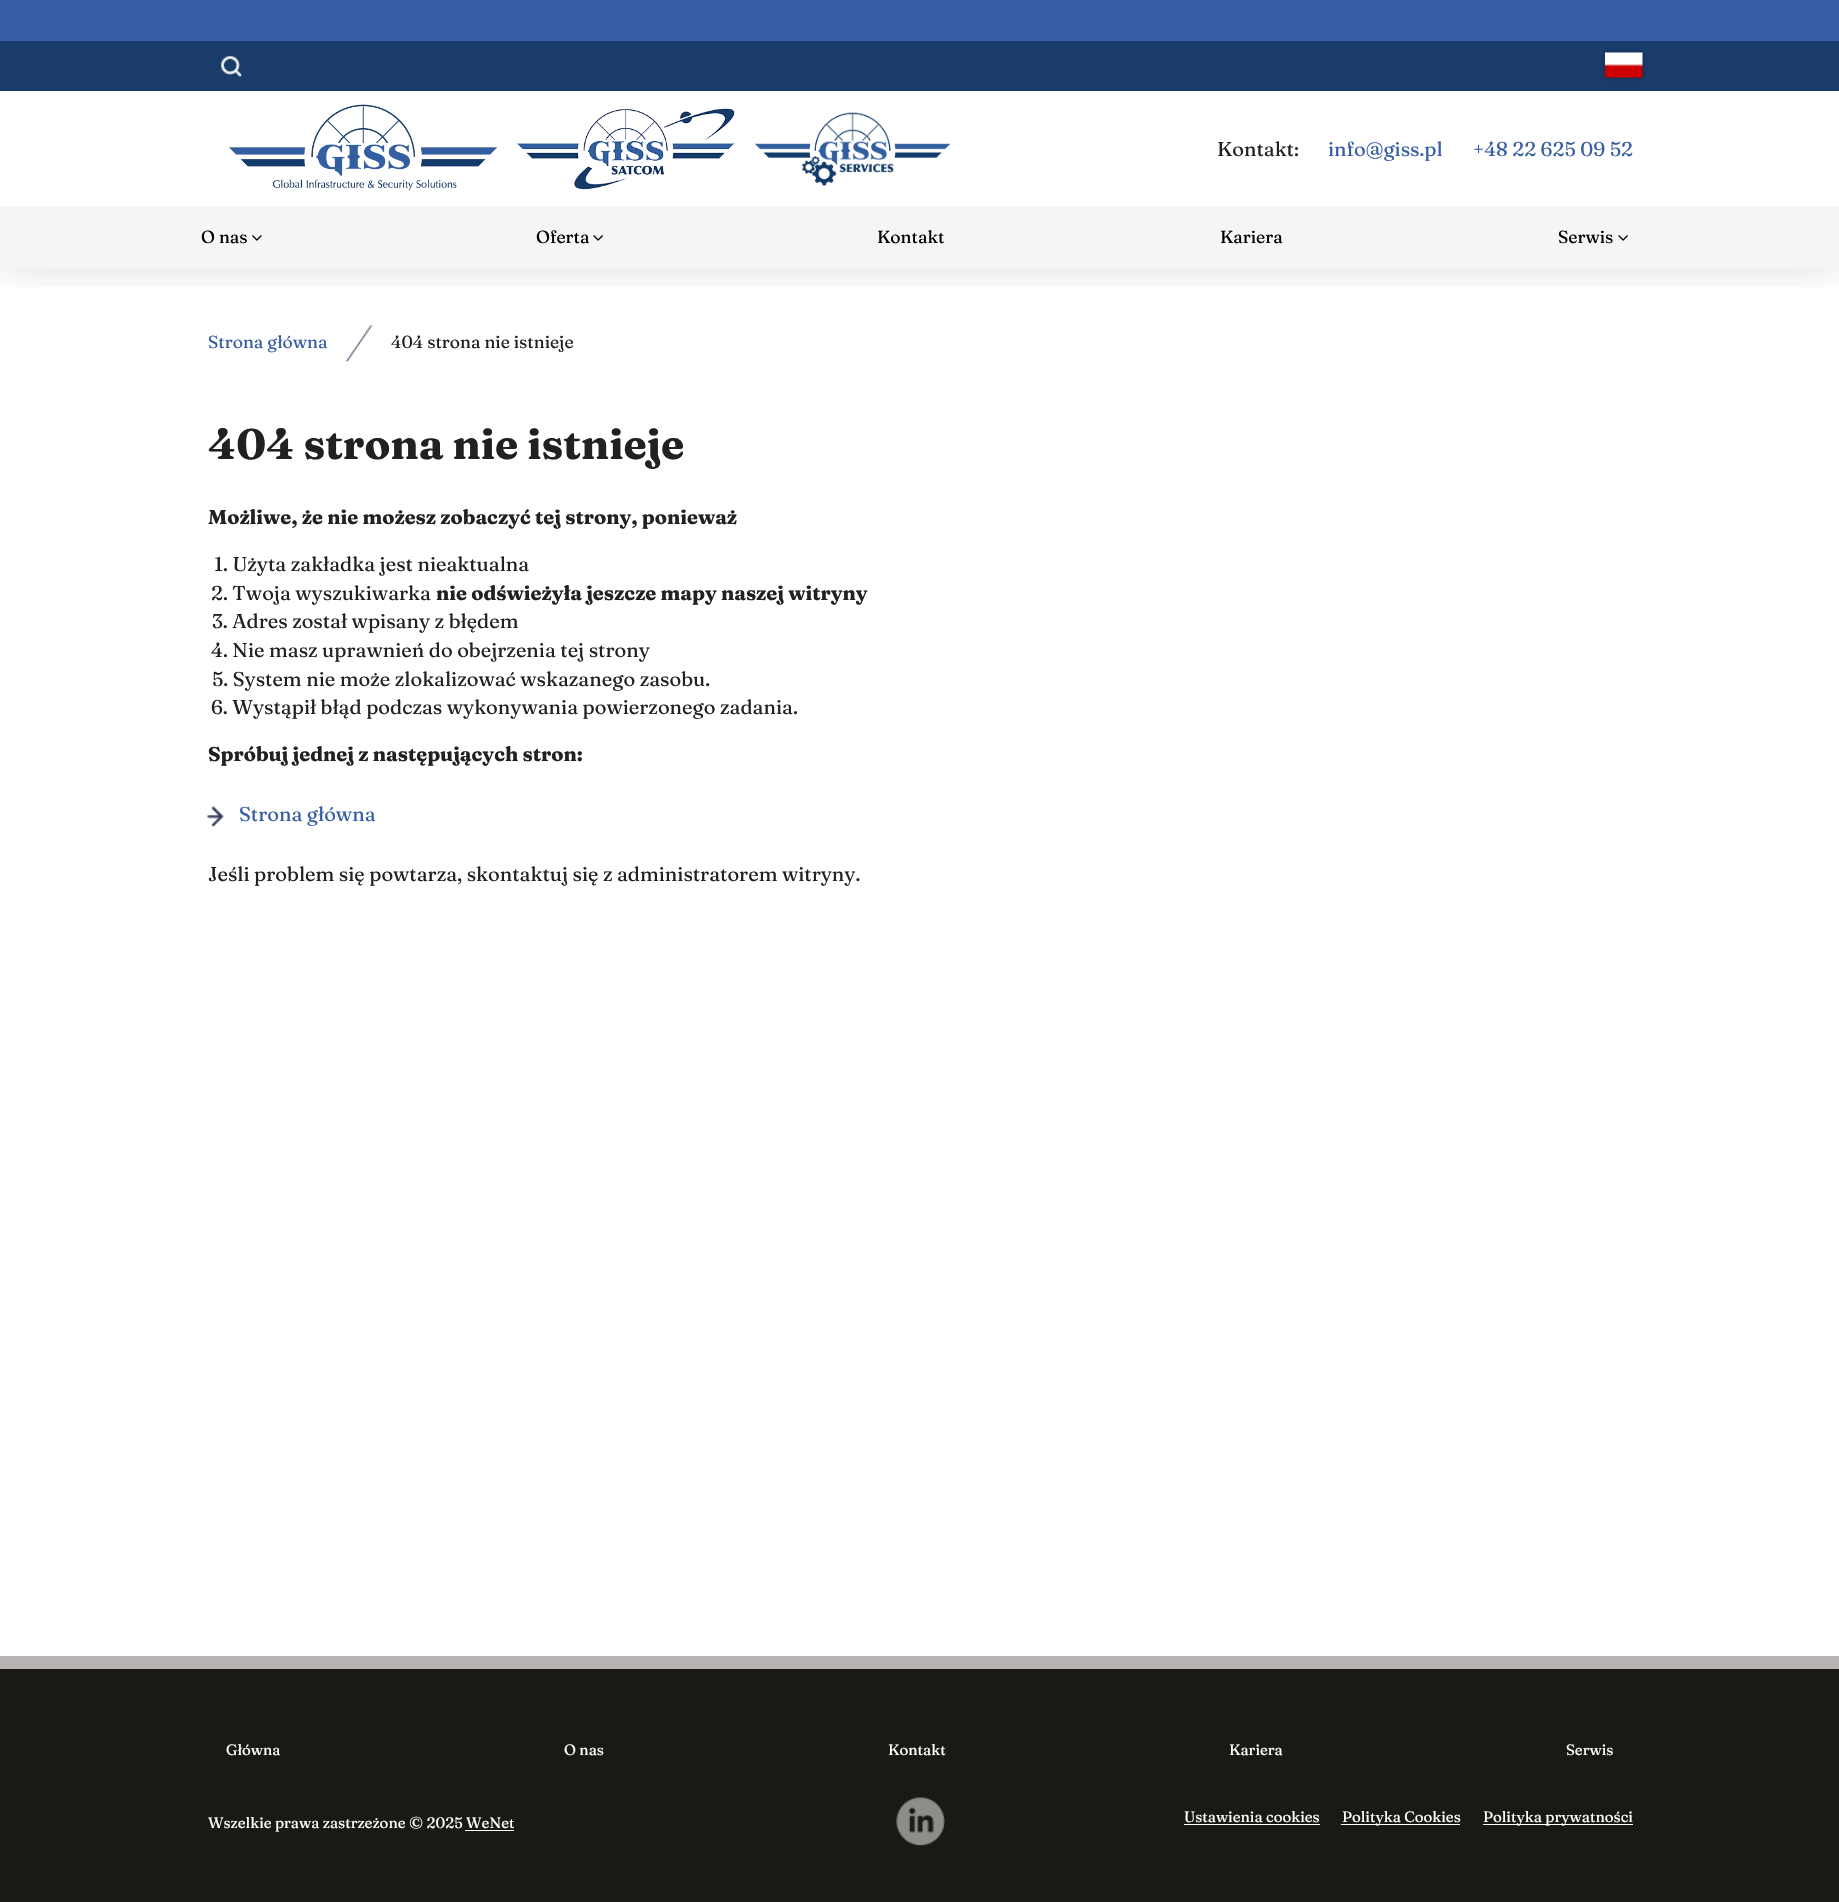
void draw(SkCanvas* canvas) {
	SkPaint fill;
	fill.setAntiAlias(true);
	auto makeFont = [&](const char* family, int weight, float size, bool italic = false) {
		SkFontStyle style(weight, SkFontStyle::kNormal_Width,
			italic ? SkFontStyle::kItalic_Slant : SkFontStyle::kUpright_Slant);
		SkFont result(fontMgr->matchFamilyStyle(family, style), size);
		result.setSubpixel(true);
		return result;
	};
	auto text = [&](const char* s, float x, float y, const SkFont& font) {
		canvas->drawString(s, x, y, font, fill);
	};
	auto box = [&](float l, float t, float r, float b) {
		canvas->drawRect(SkRect::MakeLTRB(l, t, r, b), fill);
	};
	auto picture = [&](const char* path, float l, float t, float r, float b) {
		auto image = SkImages::DeferredFromEncodedData(SkData::MakeFromFileName(path));
		canvas->drawImageRect(image, SkRect::MakeLTRB(l, t, r, b), SkSamplingOptions());
	};
	canvas->clear(0xFFFFFFFF);
	canvas->save();
	canvas->clipRect(SkRect::MakeLTRB(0, 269, 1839, 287));
	fill.setColor(0x3307203E);
	fill.setMaskFilter(SkMaskFilter::MakeBlur(kNormal_SkBlurStyle, 19));
	canvas->drawRect(SkRect::MakeLTRB(0, -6, 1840, 263), fill);
	fill.setMaskFilter(nullptr);
	canvas->restore();
	fill.setColor(0xFF375DA4);
	box(0, 0, 1839, 41);
	fill.setColor(0xFF193C6A);
	box(0, 41, 1839, 91);
	picture("image0.png", 221, 56, 242, 77);
	fill.setColor(0x4D000000);
	fill.setMaskFilter(SkMaskFilter::MakeBlur(kNormal_SkBlurStyle, 2));
	canvas->drawRect(SkRect::MakeLTRB(1605, 53, 1643, 78), fill);
	fill.setMaskFilter(nullptr);
	picture("image1.png", 1605, 52, 1643, 78);
	picture("image2.png", 229, 104, 498, 191);
	picture("image3.png", 517, 108, 735, 190);
	picture("image4.png", 755, 112, 951, 186);
	fill.setColor(0xFFF5F5F5);
	box(0, 206, 1839, 269);
	picture("image5.png", 252, 235, 262, 241);
	picture("image6.png", 593, 235, 603, 241);
	picture("image6.png", 1618, 235, 1628, 241);
	picture("image7.png", 346, 325, 373, 362);
	picture("image8.png", 207, 806, 224, 827);
	fill.setColor(0xFF1A1A14);
	box(0, 1669, 1839, 1902);
	fill.setColor(0xFFB8B4B4);
	box(0, 1656, 1839, 1669);
	fill.setColor(0xFFFFFFFF);
	box(465, 1830, 514, 1831);
	picture("image9.png", 896, 1797, 945, 1846);
	box(1184, 1824, 1320, 1825);
	box(1341, 1824, 1460, 1825);
	box(1483, 1824, 1633, 1825);
	auto font1 = makeFont("Fraunces", 400, 20);
	fill.setColor(0xFF212121);
	text("Kontakt:", 1217, 156, font1);
	fill.setColor(0xFF375DA4);
	text("info@giss.pl", 1328, 156, font1);
	text("+48 22 625 09 52", 1473, 156, font1);
	auto font2 = makeFont("Fraunces", 400, 17.5f);
	fill.setColor(0xFF000000);
	text("O nas", 201, 243, font2);
	text("Oferta", 536, 243, font2);
	text("Kontakt", 877, 243, font2);
	text("Kariera", 1220, 243, font2);
	text("Serwis", 1558, 243, font2);
	fill.setColor(0xFF375DA4);
	text("Strona główna", 208, 348, font2);
	fill.setColor(0xFF212121);
	text("404 strona nie istnieje", 391, 348, font2);
	auto font3 = makeFont("Fraunces", 700, 42.5f);
	text("404 strona nie istnieje", 208, 459, font3);
	auto font4 = makeFont("Fraunces", 700, 20);
	text("Możliwe, że nie możesz zobaczyć tej strony, ponieważ", 208, 524, font4);
	text("1. Użyta zakładka jest nieaktualna", 214, 571, font1);
	text("2. Twoja wyszukiwarka", 211, 600, font1);
	text("nie odświeżyła jeszcze mapy naszej witryny", 436, 600, font4);
	text("3. Adres został wpisany z błędem", 212, 628, font1);
	text("4. Nie masz uprawnień do obejrzenia tej strony", 211, 657, font1);
	text("5. System nie może zlokalizować wskazanego zasobu.", 212, 686, font1);
	text("6. Wystąpił błąd podczas wykonywania powierzonego zadania.", 211, 714, font1);
	text("Spróbuj jednej z następujących stron:", 208, 761, font4);
	fill.setColor(0xFF375DA4);
	text("Strona główna", 239, 821, font1);
	fill.setColor(0xFF212121);
	text("Jeśli problem się powtarza, skontaktuj się z administratorem witryny.", 208, 881, font1);
	auto font5 = makeFont("Fraunces", 400, 15);
	fill.setColor(0xFFFFFFFF);
	text("Główna", 226, 1755, font5);
	text("O nas", 564, 1755, font5);
	text("Kontakt", 888, 1755, font5);
	text("Kariera", 1229, 1755, font5);
	text("Serwis", 1566, 1755, font5);
	text("Wszelkie prawa zastrzeżone © 2025 WeNet", 208, 1828, font5);
	text("Ustawienia cookies", 1184, 1822, font5);
	text("Polityka Cookies", 1342, 1822, font5);
	text("Polityka prywatności", 1483, 1822, font5);
}
